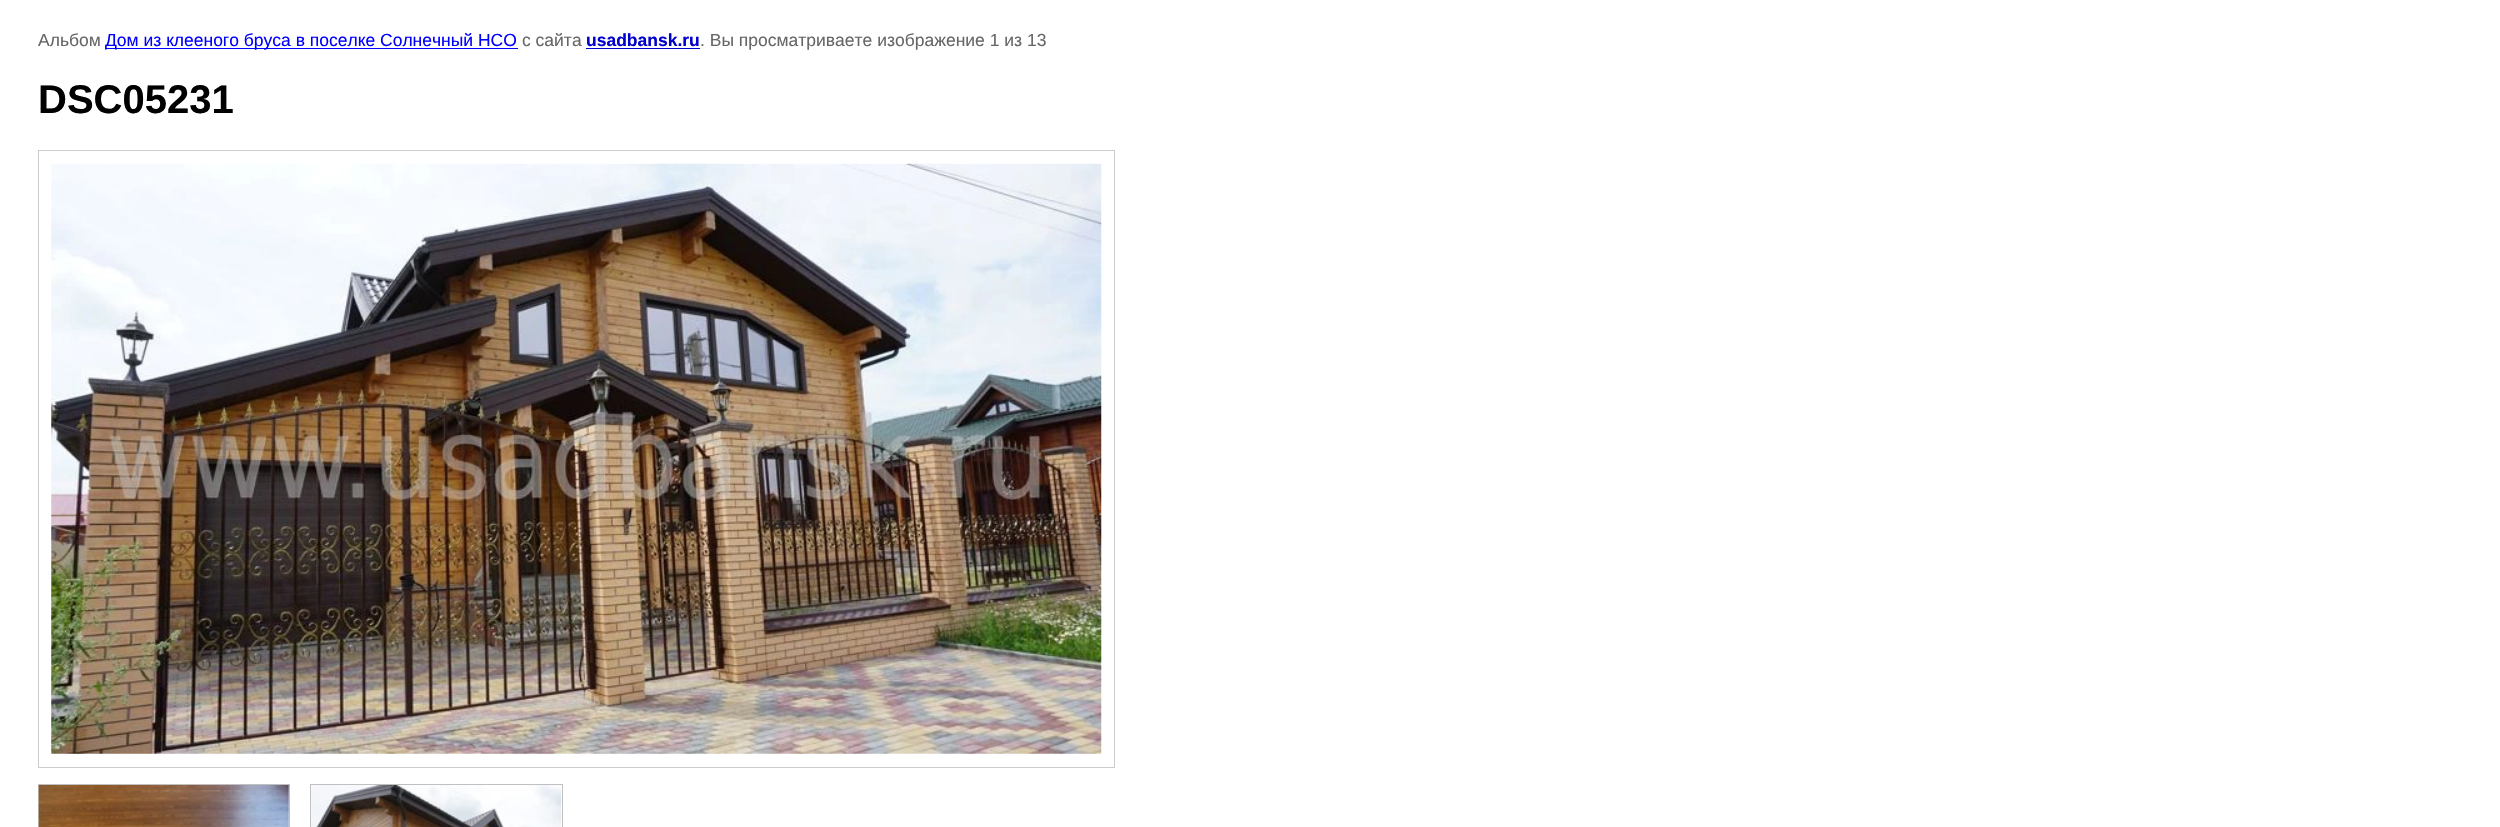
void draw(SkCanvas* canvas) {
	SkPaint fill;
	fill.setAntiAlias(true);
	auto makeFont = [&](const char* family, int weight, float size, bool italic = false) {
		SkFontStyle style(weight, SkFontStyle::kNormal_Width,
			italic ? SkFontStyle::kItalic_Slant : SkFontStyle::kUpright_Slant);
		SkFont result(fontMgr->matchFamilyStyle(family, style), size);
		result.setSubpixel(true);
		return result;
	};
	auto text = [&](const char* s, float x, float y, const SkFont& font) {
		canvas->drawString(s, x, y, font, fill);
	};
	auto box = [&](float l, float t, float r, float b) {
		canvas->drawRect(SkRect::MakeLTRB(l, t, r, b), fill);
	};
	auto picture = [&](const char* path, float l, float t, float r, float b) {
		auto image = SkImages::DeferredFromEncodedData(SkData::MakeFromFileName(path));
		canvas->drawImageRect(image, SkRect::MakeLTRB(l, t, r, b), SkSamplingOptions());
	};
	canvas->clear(0xFFFFFFFF);
	fill.setColor(0xFF0000FF);
	box(105, 48, 518, 49);
	fill.setColor(0xFF0000CC);
	box(586, 48, 700, 49);
	fill.setStyle(SkPaint::kStroke_Style);
	fill.setStrokeWidth(1);
	fill.setColor(0xFFCCCCCC);
	canvas->drawRect(SkRect::MakeLTRB(38.5f, 150.5f, 1114.5f, 767.5f), fill);
	picture("image0.png", 51, 163, 1102, 754);
	fill.setColor(0xFFC0C0C0);
	canvas->drawRect(SkRect::MakeLTRB(38.5f, 784.5f, 289.5f, 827.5f), fill);
	picture("image1.png", 38, 785, 289, 827);
	canvas->drawRect(SkRect::MakeLTRB(310.5f, 784.5f, 562.5f, 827.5f), fill);
	picture("image2.png", 311, 785, 562, 827);
	auto font1 = makeFont("Liberation Sans", 400, 17.5f);
	fill.setStyle(SkPaint::kFill_Style);
	fill.setColor(0xFF666666);
	text("Альбом", 38, 46, font1);
	fill.setColor(0xFF0000FF);
	text("Дом из клееного бруса в поселке Солнечный НСО", 105, 46, font1);
	fill.setColor(0xFF666666);
	text("с сайта", 522, 46, font1);
	auto font2 = makeFont("Liberation Sans", 700, 17.5f);
	fill.setColor(0xFF0000CC);
	text("usadbansk.ru", 586, 46, font2);
	fill.setColor(0xFF666666);
	text(". Вы просматриваете изображение 1 из 13", 700, 46, font1);
	auto font3 = makeFont("Liberation Sans", 700, 40);
	fill.setColor(0xFF000000);
	text("DSC05231", 38, 113, font3);
}
